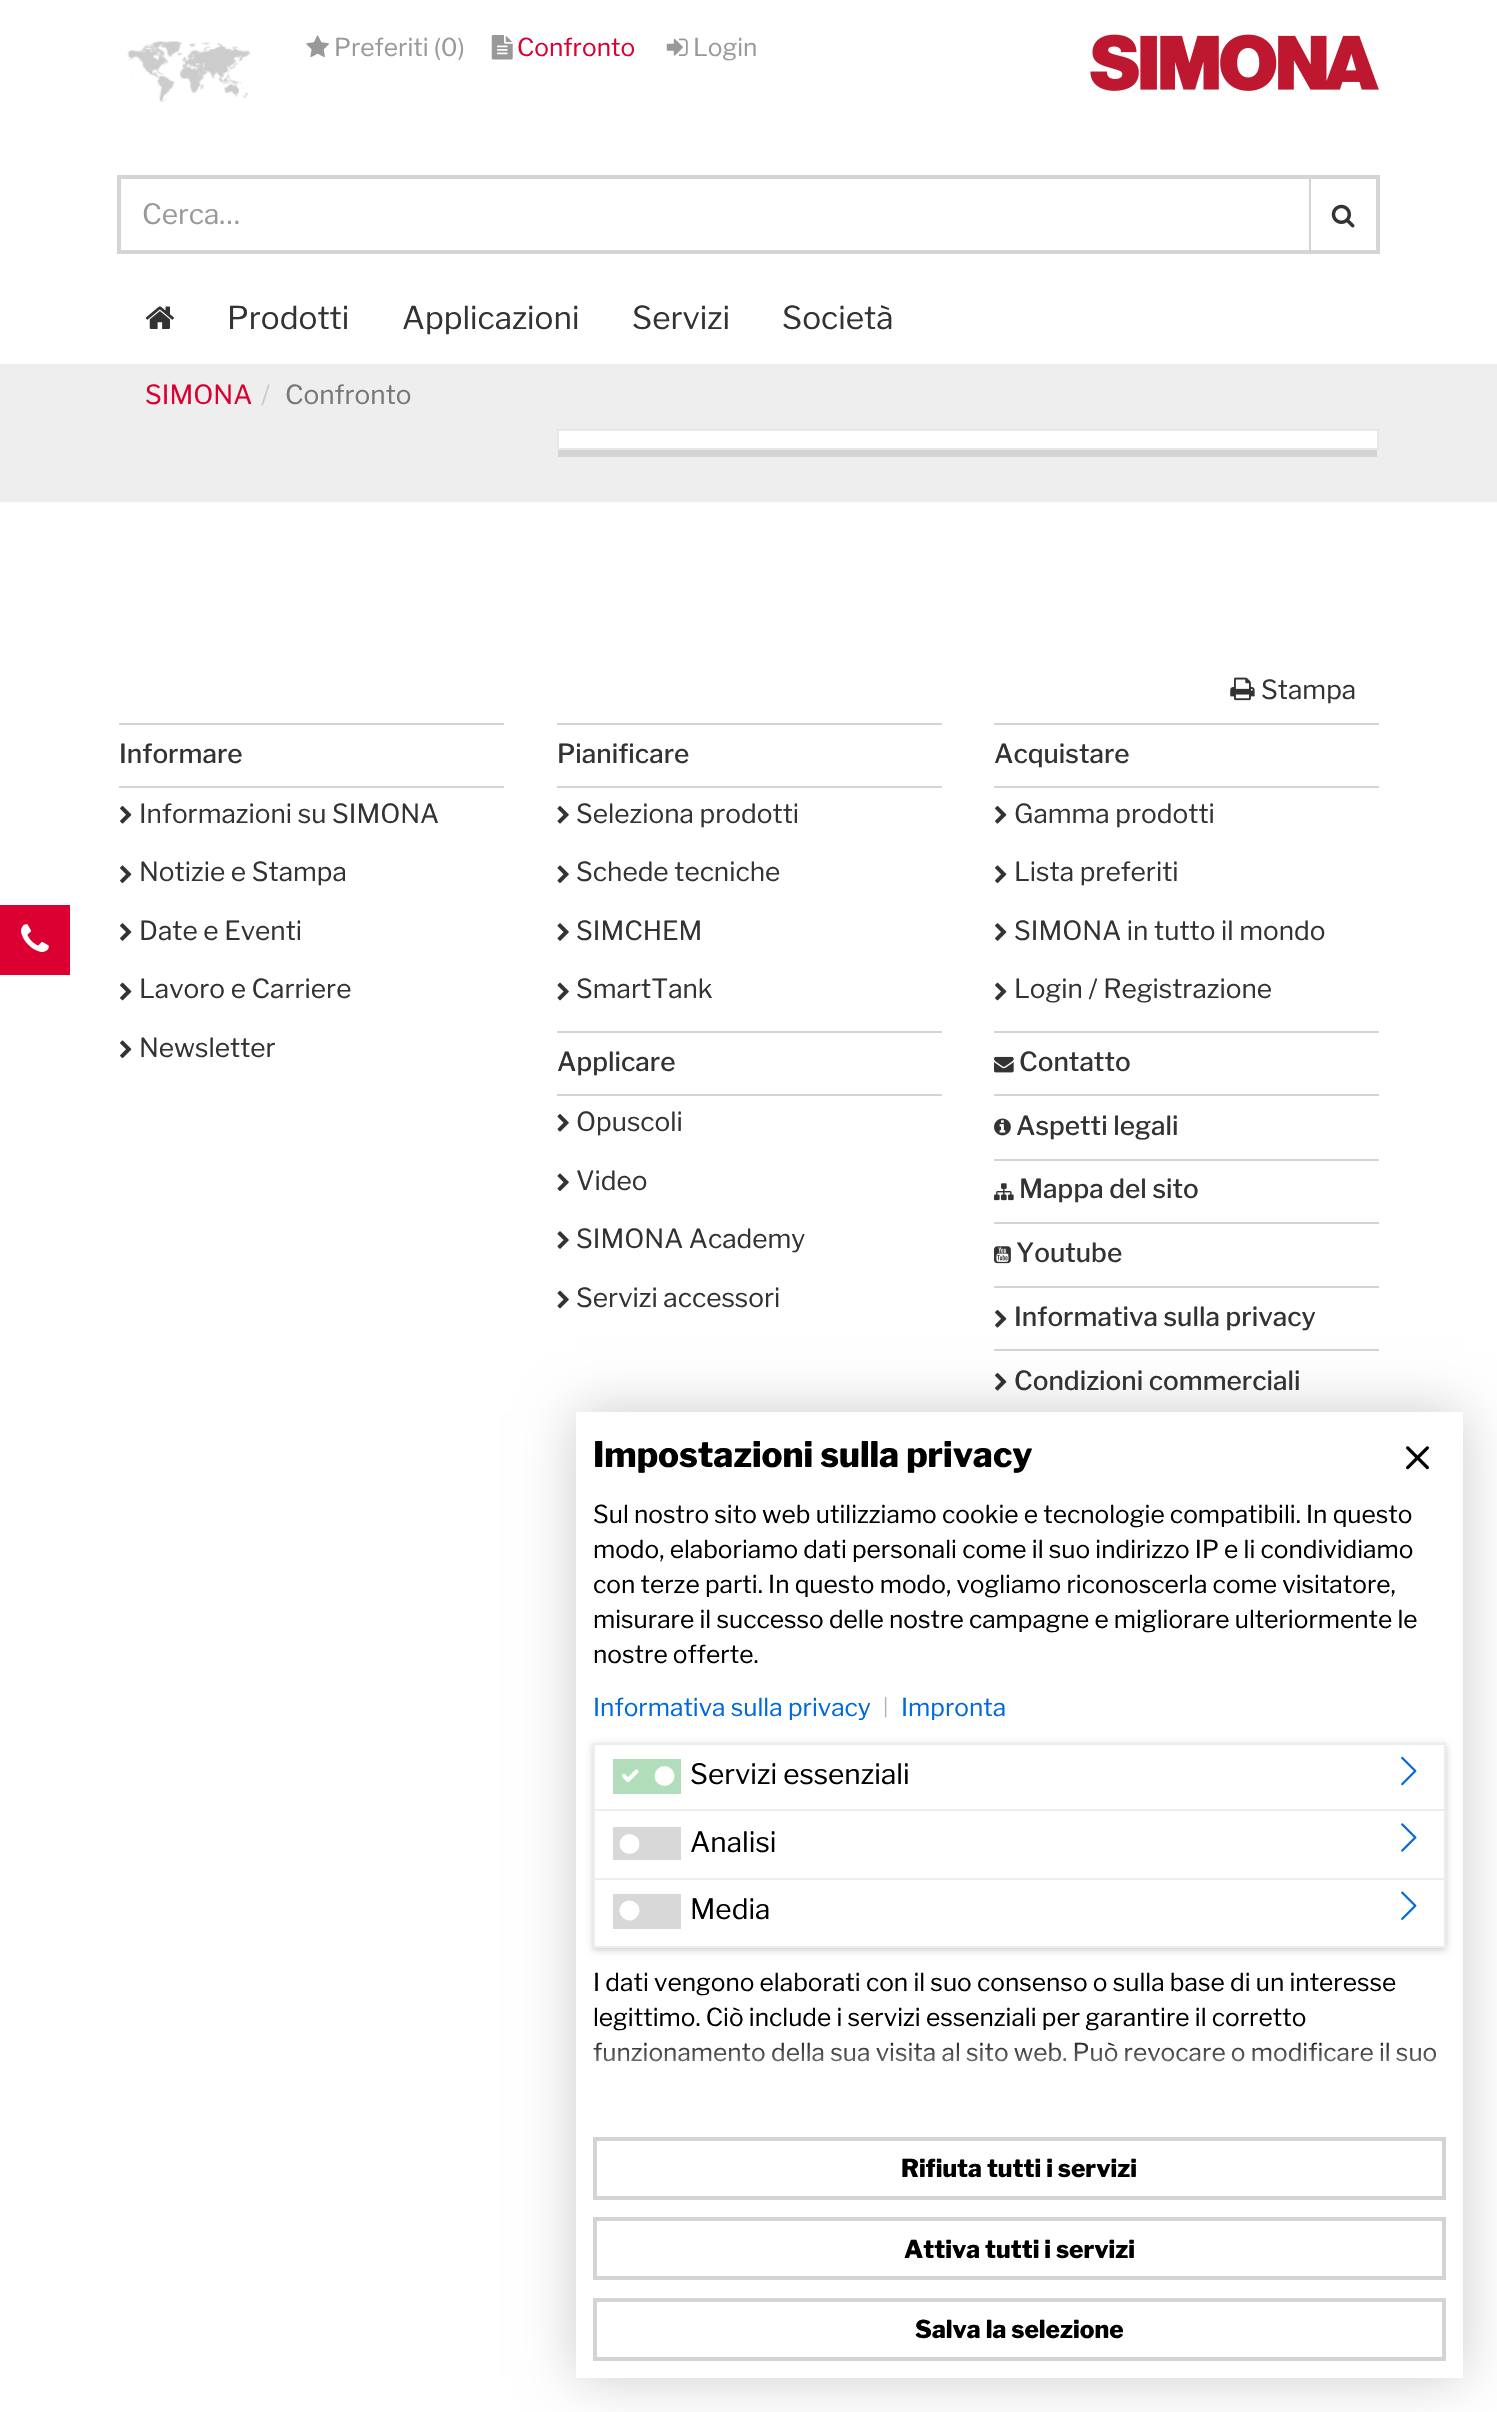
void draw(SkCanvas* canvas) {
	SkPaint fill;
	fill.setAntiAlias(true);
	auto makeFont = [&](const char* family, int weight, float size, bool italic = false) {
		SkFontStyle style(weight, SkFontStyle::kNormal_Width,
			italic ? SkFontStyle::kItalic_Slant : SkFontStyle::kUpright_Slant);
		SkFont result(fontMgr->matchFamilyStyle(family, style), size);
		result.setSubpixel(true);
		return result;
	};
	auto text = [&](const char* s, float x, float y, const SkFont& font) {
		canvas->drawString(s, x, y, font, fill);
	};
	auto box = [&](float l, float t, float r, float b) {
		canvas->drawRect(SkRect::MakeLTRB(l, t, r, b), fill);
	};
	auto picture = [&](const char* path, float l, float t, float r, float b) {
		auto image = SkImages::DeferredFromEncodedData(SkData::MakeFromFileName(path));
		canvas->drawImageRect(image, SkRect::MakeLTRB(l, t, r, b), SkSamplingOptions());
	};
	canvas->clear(0xFFFFFFFF);
	picture("image0.png", 127, 41, 251, 102);
	picture("image1.png", 306, 35, 329, 58);
	picture("image2.png", 491, 35, 513, 60);
	picture("image3.png", 666, 38, 688, 56);
	picture("image4.png", 1090, 34, 1379, 91);
	fill.setStyle(SkPaint::kStroke_Style);
	fill.setStrokeWidth(4);
	fill.setColor(0xFFD4D4D4);
	canvas->drawRect(SkRect::MakeLTRB(119, 177, 1311, 252), fill);
	fill.setStyle(SkPaint::kFill_Style);
	fill.setColor(0xFFFFFFFF);
	box(1311, 179, 1313, 250);
	fill.setColor(0xFFD4D4D4);
	box(1311, 175, 1379, 179);
	box(1376, 175, 1380, 254);
	box(1311, 250, 1379, 254);
	picture("image5.png", 1331, 204, 1355, 228);
	picture("image6.png", 145, 306, 174, 329);
	fill.setColor(0xFFEEEEEE);
	box(0, 364, 1497, 502);
	fill.setColor(0xFFFBFBFB);
	box(0, 502, 1497, 503);
	fill.setColor(0xFFD4D4D4);
	box(558, 450, 1377, 457);
	fill.setColor(0xFFFFFFFF);
	canvas->drawRect(SkRect::MakeLTRB(558, 430, 1378, 449), fill);
	fill.setStyle(SkPaint::kStroke_Style);
	fill.setStrokeWidth(2);
	fill.setColor(0xFFE8E8E8);
	canvas->drawRect(SkRect::MakeLTRB(558, 430, 1378, 449), fill);
	fill.setStyle(SkPaint::kFill_Style);
	fill.setColor(0xFFDB0031);
	box(0, 905, 70, 975);
	picture("image7.png", 21, 924, 49, 952);
	picture("image8.png", 1230, 677, 1255, 701);
	fill.setColor(0xFFD4D4D4);
	box(119, 723, 504, 725);
	box(119, 786, 504, 788);
	picture("image9.png", 120, 806, 132, 824);
	picture("image10.png", 120, 865, 132, 884);
	picture("image11.png", 120, 923, 132, 941);
	picture("image12.png", 120, 982, 132, 1001);
	picture("image10.png", 120, 1040, 132, 1059);
	box(557, 723, 942, 725);
	box(557, 786, 942, 788);
	picture("image13.png", 557, 806, 569, 824);
	picture("image14.png", 557, 865, 569, 883);
	picture("image15.png", 557, 923, 569, 941);
	picture("image16.png", 557, 982, 569, 1001);
	box(994, 723, 1379, 725);
	box(994, 786, 1379, 788);
	picture("image9.png", 995, 806, 1007, 824);
	picture("image10.png", 995, 865, 1007, 884);
	picture("image11.png", 995, 923, 1007, 941);
	picture("image12.png", 995, 982, 1007, 1001);
	box(557, 1031, 942, 1033);
	box(557, 1094, 942, 1096);
	picture("image13.png", 557, 1114, 569, 1132);
	picture("image14.png", 557, 1173, 569, 1191);
	picture("image15.png", 557, 1231, 569, 1249);
	picture("image16.png", 557, 1290, 569, 1309);
	box(994, 1031, 1379, 1033);
	box(994, 1094, 1379, 1096);
	picture("image17.png", 994, 1056, 1014, 1073);
	box(994, 1159, 1379, 1161);
	picture("image18.png", 994, 1118, 1011, 1136);
	box(994, 1222, 1379, 1224);
	picture("image19.png", 994, 1183, 1014, 1201);
	box(994, 1286, 1379, 1288);
	picture("image20.png", 994, 1246, 1011, 1264);
	box(994, 1349, 1379, 1351);
	picture("image9.png", 995, 1310, 1007, 1328);
	picture("image9.png", 995, 1373, 1007, 1391);
	fill.setColor(0x33000000);
	fill.setMaskFilter(SkMaskFilter::MakeBlur(kNormal_SkBlurStyle, 26));
	canvas->drawRect(SkRect::MakeLTRB(576, 1412, 1463, 2378), fill);
	fill.setMaskFilter(nullptr);
	fill.setColor(0xFFFFFFFF);
	box(576, 1412, 1463, 2378);
	canvas->save();
	canvas->clipPath(SkPathBuilder(SkPathFillType::kEvenOdd).moveTo(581, 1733).lineTo(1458, 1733).lineTo(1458, 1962).lineTo(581, 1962).close().moveTo(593, 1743).lineTo(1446, 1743).lineTo(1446, 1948).lineTo(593, 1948).close().detach(), true);
	fill.setColor(0x33000000);
	fill.setMaskFilter(SkMaskFilter::MakeBlur(kNormal_SkBlurStyle, 3.5f));
	canvas->drawRect(SkRect::MakeLTRB(593, 1745, 1446, 1950), fill);
	fill.setMaskFilter(nullptr);
	canvas->restore();
	fill.setStyle(SkPaint::kStroke_Style);
	fill.setColor(0xFFEDEDED);
	canvas->drawRect(SkRect::MakeLTRB(594, 1744, 1445, 1810), fill);
	fill.setStyle(SkPaint::kFill_Style);
	fill.setColor(0xFFB2DDBA);
	box(613, 1759, 681, 1794);
	fill.setColor(0xFFFFFFFF);
	canvas->drawCircle(664.5f, 1776, 10, fill);
	fill.setStyle(SkPaint::kStroke_Style);
	fill.setStrokeWidth(4.1f);
	fill.setStrokeCap(SkPaint::kRound_Cap);
	fill.setStrokeJoin(SkPaint::kRound_Join);
	canvas->drawPath(SkPathBuilder().moveTo(624, 1776).lineTo(628, 1780).lineTo(636.5f, 1771.5f).detach(), fill);
	picture("image21.png", 1401, 1756, 1417, 1786);
	fill.setStyle(SkPaint::kFill_Style);
	fill.setColor(0xFFEDEDED);
	box(1444, 1811, 1446, 1948);
	box(593, 1878, 1446, 1880);
	box(593, 1811, 595, 1880);
	fill.setColor(0xFFD8D8D8);
	box(613, 1827, 681, 1860);
	fill.setColor(0xFFFFFFFF);
	canvas->drawCircle(629.5f, 1844, 10, fill);
	fill.setStyle(SkPaint::kStroke_Style);
	canvas->drawPath(SkPathBuilder().moveTo(624, 1844).lineTo(628, 1848).lineTo(636.5f, 1840).detach(), fill);
	picture("image22.png", 1401, 1823, 1417, 1852);
	fill.setStyle(SkPaint::kFill_Style);
	fill.setColor(0xFFEDEDED);
	box(593, 1946, 1446, 1948);
	box(593, 1880, 595, 1948);
	fill.setColor(0xFFD8D8D8);
	box(613, 1894, 681, 1929);
	fill.setColor(0xFFFFFFFF);
	canvas->drawCircle(629.5f, 1910.5f, 10, fill);
	fill.setStyle(SkPaint::kStroke_Style);
	canvas->drawPath(SkPathBuilder().moveTo(624, 1910.5f).lineTo(628, 1914.5f).lineTo(636.5f, 1906.5f).detach(), fill);
	picture("image23.png", 1401, 1891, 1417, 1920);
	fill.setStrokeWidth(4);
	fill.setStrokeCap(SkPaint::kButt_Cap);
	fill.setStrokeJoin(SkPaint::kMiter_Join);
	fill.setColor(0xFFD4D4D4);
	canvas->drawRect(SkRect::MakeLTRB(595, 2139, 1444, 2198), fill);
	canvas->drawRect(SkRect::MakeLTRB(595, 2219, 1444, 2278), fill);
	canvas->drawRect(SkRect::MakeLTRB(595, 2300, 1444, 2359), fill);
	picture("image24.png", 1406, 1446, 1429, 1470);
	auto font1 = makeFont("Libre Franklin", 400, 24.5f);
	fill.setStyle(SkPaint::kFill_Style);
	fill.setColor(0xFF999999);
	text("Preferiti (0)", 334, 56, font1);
	fill.setColor(0xFFDB0031);
	text("Confronto", 517, 56, font1);
	fill.setColor(0xFF999999);
	text("Login", 693, 56, font1);
	auto font2 = makeFont("Libre Franklin", 400, 28);
	text("Cerca…", 142, 224, font2);
	auto font3 = makeFont("Libre Franklin", 400, 31.5f);
	fill.setColor(0xFF333333);
	text("Prodotti", 227, 329, font3);
	text("Applicazioni", 402, 329, font3);
	text("Servizi", 632, 329, font3);
	text("Società", 782, 329, font3);
	auto font4 = makeFont("Libre Franklin", 400, 26.25f);
	fill.setColor(0xFFDB0031);
	text("SIMONA", 145, 404, font4);
	fill.setColor(0xFFCCCCCC);
	text("/", 261, 404, font4);
	fill.setColor(0xFF777777);
	text("Confronto", 285, 404, font4);
	fill.setColor(0xFF333333);
	text("Stampa", 1261, 699, font4);
	auto font5 = makeFont("Libre Franklin", 500, 26.25f);
	text("Informare", 119, 763, font5);
	text("Informazioni su SIMONA", 139, 823, font4);
	text("Notizie e Stampa", 139, 881, font4);
	text("Date e Eventi", 139, 940, font4);
	text("Lavoro e Carriere", 139, 998, font4);
	text("Newsletter", 139, 1057, font4);
	text("Pianificare", 557, 763, font5);
	text("Seleziona prodotti", 576, 823, font4);
	text("Schede tecniche", 576, 881, font4);
	text("SIMCHEM", 576, 940, font4);
	text("SmartTank", 576, 998, font4);
	text("Acquistare", 994, 763, font5);
	text("Gamma prodotti", 1014, 823, font4);
	text("Lista preferiti", 1014, 881, font4);
	text("SIMONA in tutto il mondo", 1014, 940, font4);
	text("Login / Registrazione", 1014, 998, font4);
	text("Applicare", 557, 1071, font5);
	text("Opuscoli", 576, 1131, font4);
	text("Video", 576, 1190, font4);
	text("SIMONA Academy", 576, 1248, font4);
	text("Servizi accessori", 576, 1307, font4);
	text("Contatto", 1019, 1071, font5);
	text("Aspetti legali", 1016, 1135, font5);
	text("Mappa del sito", 1019, 1198, font5);
	text("Youtube", 1016, 1262, font5);
	text("Informativa sulla privacy", 1014, 1326, font5);
	text("Condizioni commerciali", 1014, 1390, font5);
	auto font6 = makeFont("Libre Franklin", 800, 35);
	fill.setColor(0xFF000000);
	text("Impostazioni sulla privacy", 593, 1467, font6);
	text("Sul nostro sito web utilizziamo cookie e tecnologie compatibili. In questo", 593, 1523, font1);
	text("modo, elaboriamo dati personali come il suo indirizzo IP e li condividiamo", 593, 1558, font1);
	text("con terze parti. In questo modo, vogliamo riconoscerla come visitatore,", 593, 1593, font1);
	text("misurare il successo delle nostre campagne e migliorare ulteriormente le", 593, 1628, font1);
	text("nostre offerte.", 593, 1663, font1);
	fill.setColor(0xFF006ADC);
	text("Informativa sulla privacy", 593, 1716, font1);
	auto font7 = makeFont("Libre Franklin", 400, 20);
	fill.setColor(0xFFB3B3B3);
	text("|", 883, 1714, font7);
	fill.setColor(0xFF006ADC);
	text("Impronta", 901, 1716, font1);
	fill.setColor(0xFF000000);
	text("Servizi essenziali", 690, 1784, font2);
	text("Analisi", 690, 1852, font2);
	text("Media", 690, 1919, font2);
	text("I dati vengono elaborati con il suo consenso o sulla base di un interesse", 593, 1991, font1);
	text("legittimo. Ciò include i servizi essenziali per garantire il corretto", 593, 2026, font1);
	text("funzionamento della sua visita al sito web. Può revocare o modificare il suo", 593, 2061, font1);
	{
		const SkColor colors[] = {0x00FFFFFF, 0xFFFFFFFF};
		const float stops[] = {0, 1};
		const SkPoint ends[] = {{1010, 2032}, {1010, 2102}};
		fill.setShader(SkGradientShader::MakeLinear(ends, colors, stops, 2, SkTileMode::kClamp));
		fill.setAlpha(255);
	}
	box(593, 2042, 1437, 2062);
	auto font8 = makeFont("Libre Franklin", 800, 24.5f);
	fill.setShader(nullptr);
	fill.setColor(0xFF000000);
	text("Rifiuta tutti i servizi", 901, 2177, font8);
	text("Attiva tutti i servizi", 904, 2258, font8);
	text("Salva la selezione", 915, 2338, font8);
}
